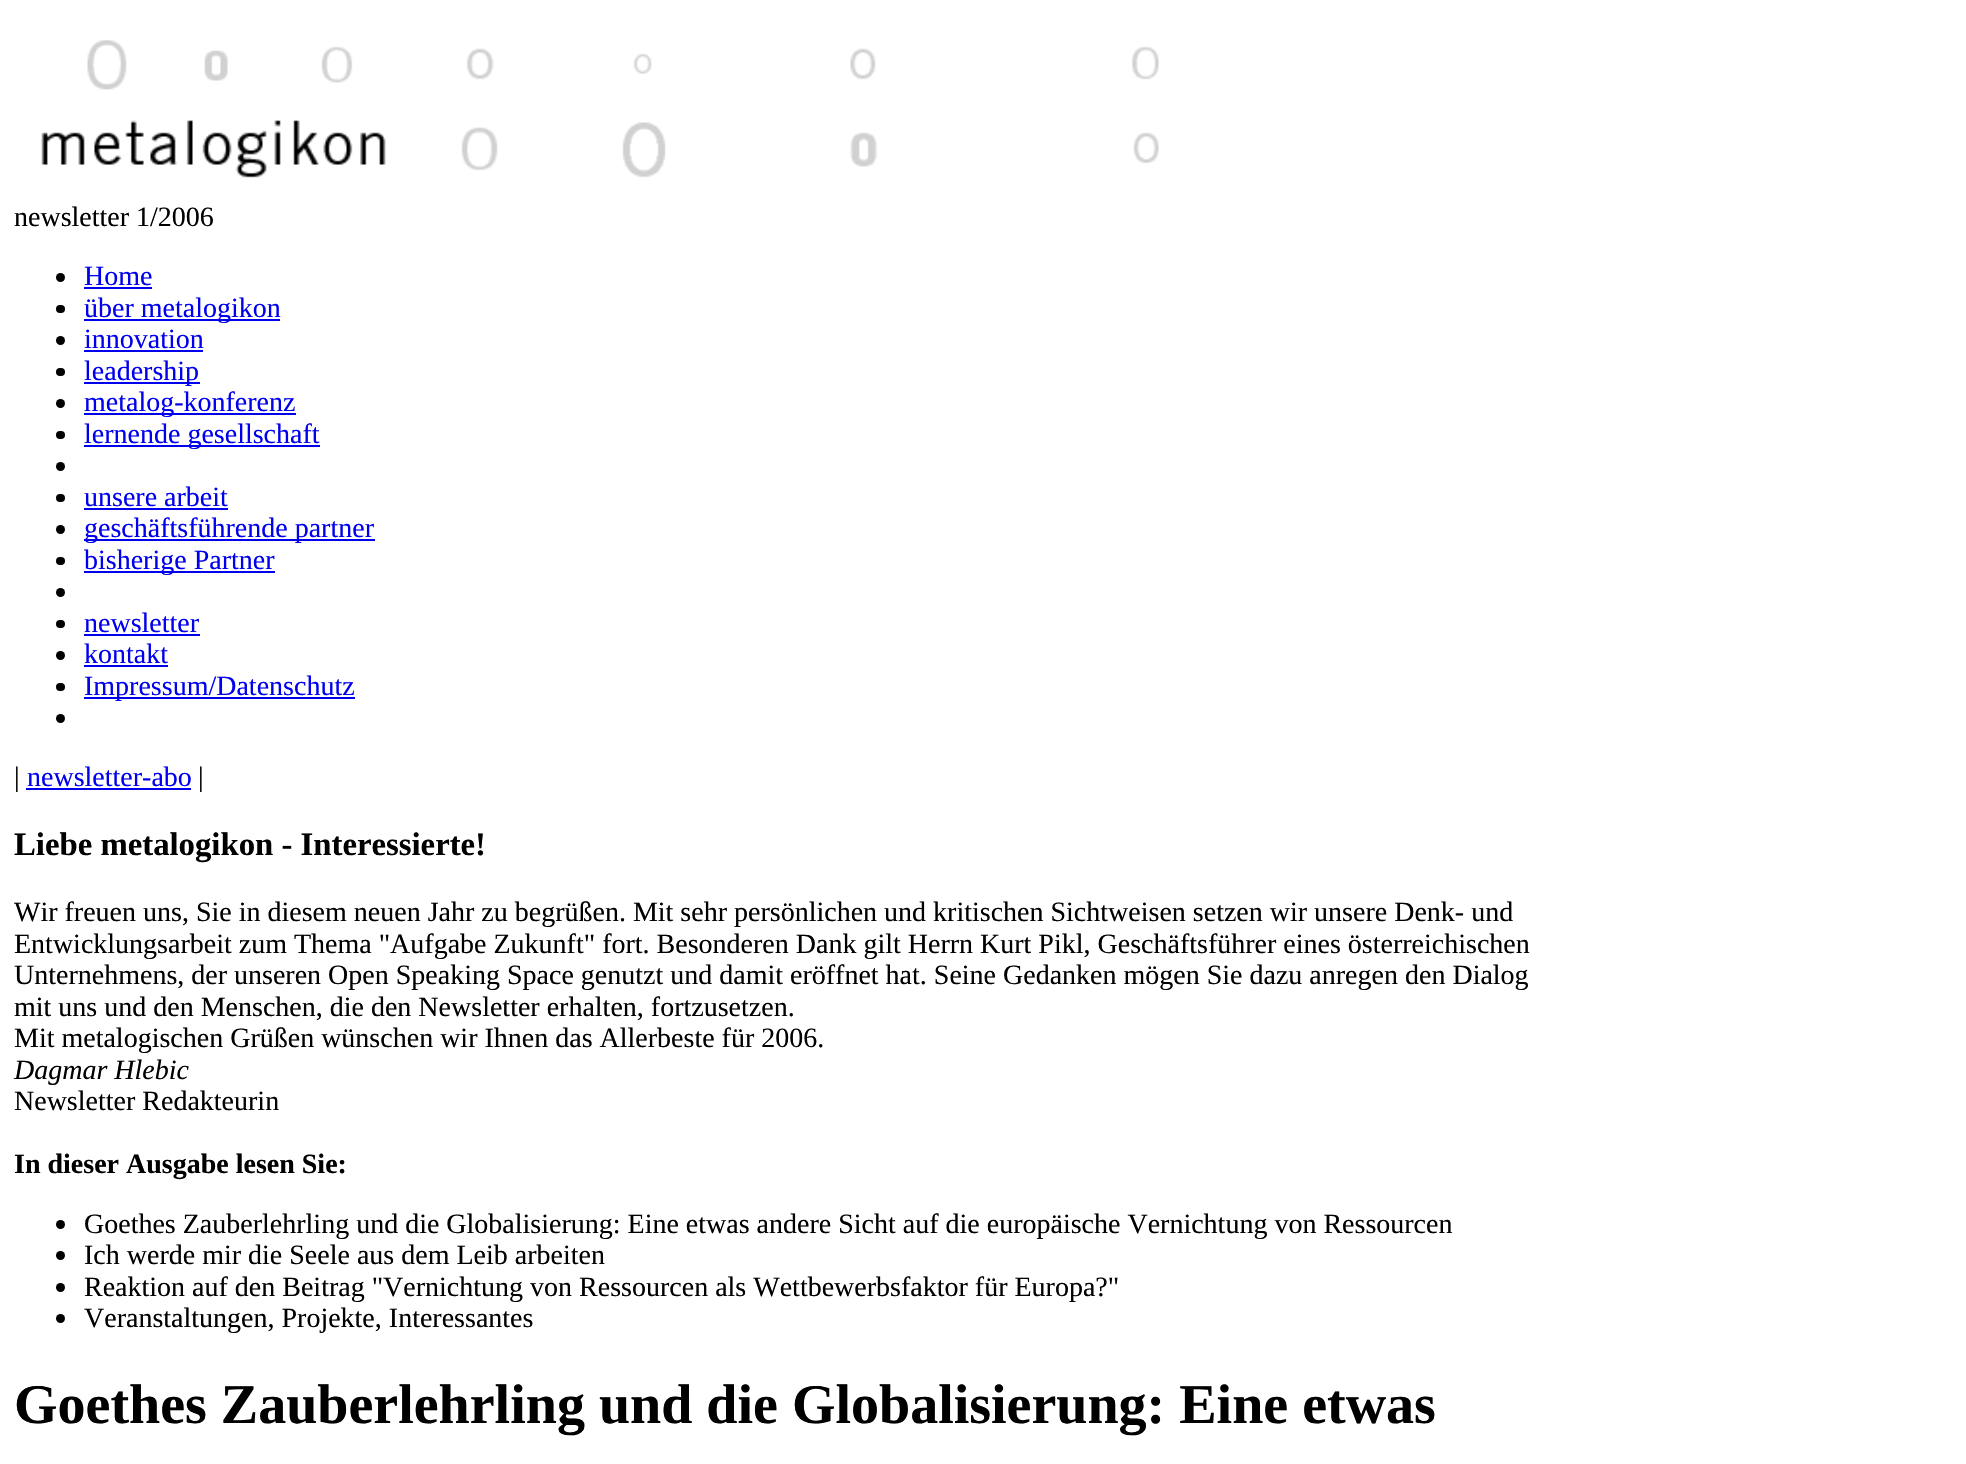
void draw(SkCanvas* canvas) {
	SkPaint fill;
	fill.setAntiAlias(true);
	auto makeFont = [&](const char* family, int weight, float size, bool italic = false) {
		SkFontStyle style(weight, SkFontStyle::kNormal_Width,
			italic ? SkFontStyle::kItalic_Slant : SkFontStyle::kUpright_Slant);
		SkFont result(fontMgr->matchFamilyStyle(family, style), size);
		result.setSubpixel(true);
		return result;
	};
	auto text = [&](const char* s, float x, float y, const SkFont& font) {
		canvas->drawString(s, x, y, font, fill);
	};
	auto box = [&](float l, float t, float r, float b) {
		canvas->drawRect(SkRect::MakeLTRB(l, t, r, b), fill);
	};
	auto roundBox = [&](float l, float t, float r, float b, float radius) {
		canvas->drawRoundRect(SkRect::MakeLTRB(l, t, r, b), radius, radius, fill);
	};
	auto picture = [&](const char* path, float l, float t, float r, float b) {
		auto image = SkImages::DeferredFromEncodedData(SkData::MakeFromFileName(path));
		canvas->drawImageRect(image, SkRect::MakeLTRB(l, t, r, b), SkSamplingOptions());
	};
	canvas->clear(0xFFFFFFFF);
	picture("image0.png", 41, 40, 1159, 178);
	fill.setColor(0xFF000000);
	canvas->drawCircle(60.5f, 277.5f, 4.5f, fill);
	fill.setColor(0xFF0000EE);
	box(84, 287, 152, 289);
	fill.setColor(0xFF000000);
	roundBox(56, 305, 65, 313, 4);
	fill.setColor(0xFF0000EE);
	box(84, 319, 280, 321);
	fill.setColor(0xFF000000);
	canvas->drawCircle(60.5f, 340.5f, 4.5f, fill);
	fill.setColor(0xFF0000EE);
	box(84, 350, 203, 352);
	fill.setColor(0xFF000000);
	roundBox(56, 368, 65, 376, 4);
	fill.setColor(0xFF0000EE);
	box(84, 382, 200, 384);
	fill.setColor(0xFF000000);
	canvas->drawCircle(60.5f, 403.5f, 4.5f, fill);
	fill.setColor(0xFF0000EE);
	box(84, 413, 296, 415);
	fill.setColor(0xFF000000);
	roundBox(56, 431, 65, 439, 4);
	fill.setColor(0xFF0000EE);
	box(84, 445, 320, 447);
	fill.setColor(0xFF000000);
	canvas->drawCircle(60.5f, 466.5f, 4.5f, fill);
	roundBox(56, 494, 65, 502, 4);
	fill.setColor(0xFF0000EE);
	box(84, 508, 228, 510);
	fill.setColor(0xFF000000);
	canvas->drawCircle(60.5f, 529.5f, 4.5f, fill);
	fill.setColor(0xFF0000EE);
	box(84, 539, 375, 541);
	fill.setColor(0xFF000000);
	roundBox(56, 557, 65, 565, 4);
	fill.setColor(0xFF0000EE);
	box(84, 571, 275, 573);
	fill.setColor(0xFF000000);
	canvas->drawCircle(60.5f, 592.5f, 4.5f, fill);
	roundBox(56, 620, 65, 628, 4);
	fill.setColor(0xFF0000EE);
	box(84, 634, 200, 636);
	fill.setColor(0xFF000000);
	canvas->drawCircle(60.5f, 655.5f, 4.5f, fill);
	fill.setColor(0xFF0000EE);
	box(84, 665, 168, 667);
	fill.setColor(0xFF000000);
	roundBox(56, 683, 65, 691, 4);
	fill.setColor(0xFF0000EE);
	box(84, 697, 355, 699);
	fill.setColor(0xFF000000);
	canvas->drawCircle(60.5f, 718.5f, 4.5f, fill);
	fill.setColor(0xFF0000EE);
	box(26, 788, 191, 790);
	fill.setColor(0xFF000000);
	canvas->drawCircle(60.5f, 1224.5f, 4.5f, fill);
	canvas->drawCircle(60.5f, 1255.5f, 4.5f, fill);
	canvas->drawCircle(60.5f, 1287.5f, 4.5f, fill);
	canvas->drawCircle(60.5f, 1318.5f, 4.5f, fill);
	auto font1 = makeFont("Liberation Serif", 400, 28);
	text("newsletter 1/2006", 14, 226, font1);
	fill.setColor(0xFF0000EE);
	text("Home", 84, 285, font1);
	text("über metalogikon", 84, 317, font1);
	text("innovation", 84, 348, font1);
	text("leadership", 84, 380, font1);
	text("metalog-konferenz", 84, 411, font1);
	text("lernende gesellschaft", 84, 443, font1);
	text("unsere arbeit", 84, 506, font1);
	text("geschäftsführende partner", 84, 537, font1);
	text("bisherige Partner", 84, 569, font1);
	text("newsletter", 84, 632, font1);
	text("kontakt", 84, 663, font1);
	text("Impressum/Datenschutz", 84, 695, font1);
	fill.setColor(0xFF000000);
	text("|", 14, 786, font1);
	fill.setColor(0xFF0000EE);
	text("newsletter-abo", 27, 786, font1);
	fill.setColor(0xFF000000);
	text("|", 198, 786, font1);
	auto font2 = makeFont("Liberation Serif", 700, 32.75f);
	text("Liebe metalogikon - Interessierte!", 14, 855, font2);
	text("Wir freuen uns, Sie in diesem neuen Jahr zu begrüßen. Mit sehr persönlichen und kritischen Sichtweisen setzen wir unsere Denk- und", 14, 921, font1);
	text("Entwicklungsarbeit zum Thema \"Aufgabe Zukunft\" fort. Besonderen Dank gilt Herrn Kurt Pikl, Geschäftsführer eines österreichischen", 14, 953, font1);
	text("Unternehmens, der unseren Open Speaking Space genutzt und damit eröffnet hat. Seine Gedanken mögen Sie dazu anregen den Dialog", 14, 984, font1);
	text("mit uns und den Menschen, die den Newsletter erhalten, fortzusetzen.", 14, 1016, font1);
	text("Mit metalogischen Grüßen wünschen wir Ihnen das Allerbeste für 2006.", 14, 1047, font1);
	auto font3 = makeFont("Liberation Serif", 400, 28, true);
	text("Dagmar Hlebic", 14, 1079, font3);
	text("Newsletter Redakteurin", 14, 1110, font1);
	auto font4 = makeFont("Liberation Serif", 700, 28);
	text("In dieser Ausgabe lesen Sie:", 14, 1173, font4);
	text("Goethes Zauberlehrling und die Globalisierung: Eine etwas andere Sicht auf die europäische Vernichtung von Ressourcen", 84, 1233, font1);
	text("Ich werde mir die Seele aus dem Leib arbeiten", 84, 1264, font1);
	text("Reaktion auf den Beitrag \"Vernichtung von Ressourcen als Wettbewerbsfaktor für Europa?\"", 84, 1296, font1);
	text("Veranstaltungen, Projekte, Interessantes", 84, 1327, font1);
	auto font5 = makeFont("Liberation Serif", 700, 56);
	text("Goethes Zauberlehrling und die Globalisierung: Eine etwas", 14, 1423, font5);
}
